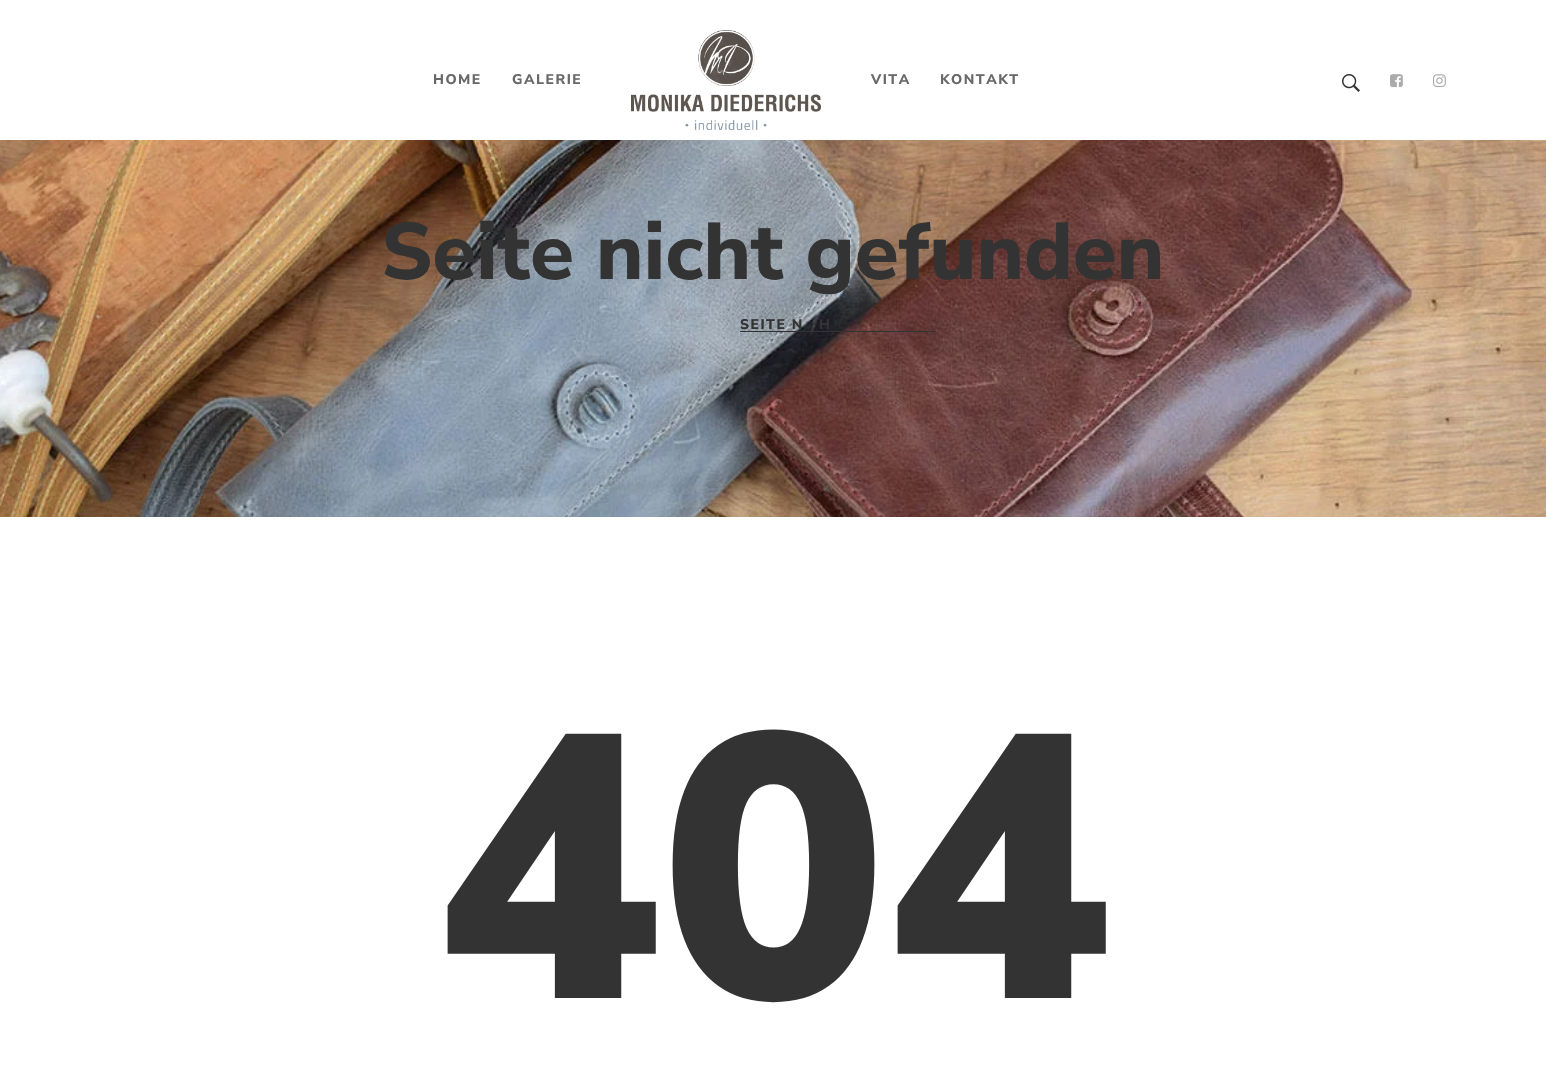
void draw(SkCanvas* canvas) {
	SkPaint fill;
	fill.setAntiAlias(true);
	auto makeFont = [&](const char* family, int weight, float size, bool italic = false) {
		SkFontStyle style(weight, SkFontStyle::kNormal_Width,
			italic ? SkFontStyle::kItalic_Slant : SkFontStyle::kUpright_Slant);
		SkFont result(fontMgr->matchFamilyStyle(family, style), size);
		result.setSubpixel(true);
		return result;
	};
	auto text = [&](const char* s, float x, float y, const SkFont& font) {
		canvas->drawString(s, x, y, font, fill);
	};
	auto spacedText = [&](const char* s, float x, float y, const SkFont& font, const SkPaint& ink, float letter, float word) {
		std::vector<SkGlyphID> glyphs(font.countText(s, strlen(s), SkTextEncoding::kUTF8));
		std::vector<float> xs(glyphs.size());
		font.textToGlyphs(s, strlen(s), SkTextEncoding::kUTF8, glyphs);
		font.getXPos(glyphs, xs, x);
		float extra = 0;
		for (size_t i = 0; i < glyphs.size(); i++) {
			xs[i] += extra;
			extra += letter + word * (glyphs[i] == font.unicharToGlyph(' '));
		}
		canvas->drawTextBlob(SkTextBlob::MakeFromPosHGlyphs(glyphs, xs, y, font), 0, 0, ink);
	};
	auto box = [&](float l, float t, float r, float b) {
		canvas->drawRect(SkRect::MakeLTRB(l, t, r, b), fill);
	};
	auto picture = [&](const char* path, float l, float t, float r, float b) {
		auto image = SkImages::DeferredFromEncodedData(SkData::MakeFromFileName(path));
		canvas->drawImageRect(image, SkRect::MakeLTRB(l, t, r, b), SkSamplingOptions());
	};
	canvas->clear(0xFFFFFFFF);
	picture("image0.png", 631, 30, 821, 130);
	picture("image1.png", 1342, 74, 1360, 92);
	picture("image2.png", 1390, 74, 1403, 88);
	picture("image3.png", 1433, 74, 1446, 88);
	picture("image4.png", 0, 140, 1546, 517);
	fill.setColor(0xFF333333);
	box(740, 331, 936, 332);
	auto font1 = makeFont("Nunito Sans", 800, 14);
	fill.setColor(0xFF696969);
	spacedText("HOME", 433, 84, font1, fill, 1.5f, 0);
	spacedText("GALERIE", 512, 84, font1, fill, 1.5f, 0);
	spacedText("VITA", 871, 84, font1, fill, 1.5f, 0);
	spacedText("KONTAKT", 940, 84, font1, fill, 1.5f, 0);
	auto font2 = makeFont("Nunito Sans", 800, 80);
	fill.setColor(0xFF333333);
	text("Seite nicht gefunden", 381, 279, font2);
	spacedText("SEITE N", 740, 329, font1, fill, 1.5f, 0);
	spacedText("H", 819, 329, font1, fill, 1.5f, 0);
	auto font3 = makeFont("Nunito Sans", 900, 375);
	text("404", 436, 998, font3);
}
